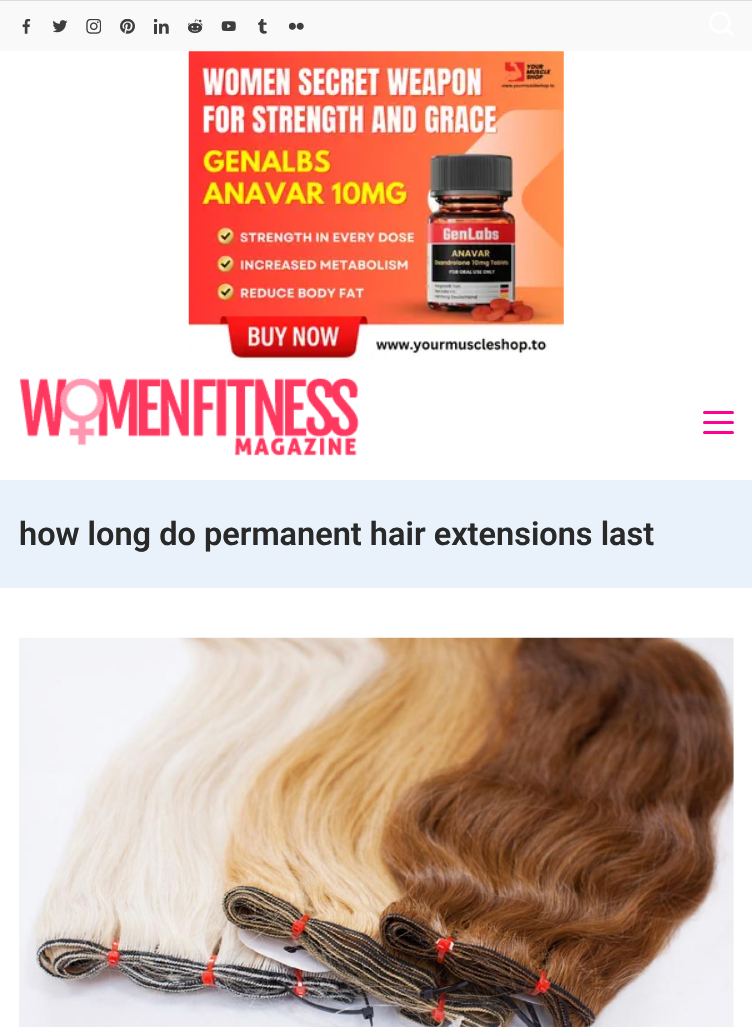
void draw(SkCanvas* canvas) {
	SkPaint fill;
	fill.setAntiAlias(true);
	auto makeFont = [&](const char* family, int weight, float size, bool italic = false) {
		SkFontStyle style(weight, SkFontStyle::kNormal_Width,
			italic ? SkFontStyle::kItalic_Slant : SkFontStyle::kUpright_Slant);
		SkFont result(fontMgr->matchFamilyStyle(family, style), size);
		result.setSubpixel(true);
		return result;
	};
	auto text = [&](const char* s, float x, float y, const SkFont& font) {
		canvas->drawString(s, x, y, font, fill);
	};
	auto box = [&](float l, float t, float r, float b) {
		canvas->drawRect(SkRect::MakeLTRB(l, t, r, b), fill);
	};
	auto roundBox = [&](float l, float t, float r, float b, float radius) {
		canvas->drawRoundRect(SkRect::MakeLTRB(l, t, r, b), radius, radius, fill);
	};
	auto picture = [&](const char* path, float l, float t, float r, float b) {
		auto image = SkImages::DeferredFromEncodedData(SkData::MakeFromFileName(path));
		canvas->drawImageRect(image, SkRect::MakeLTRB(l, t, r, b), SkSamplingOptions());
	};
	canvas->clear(0xFFFFFFFF);
	fill.setColor(0xFFDDDDDD);
	box(0, 0, 752, 1);
	fill.setColor(0xFFF9F9F9);
	box(0, 1, 752, 51);
	picture("image0.png", 22, 19, 31, 34);
	picture("image1.png", 53, 20, 68, 33);
	picture("image2.png", 86, 19, 101, 34);
	picture("image3.png", 120, 19, 135, 34);
	picture("image4.png", 154, 19, 169, 34);
	picture("image5.png", 188, 19, 203, 34);
	picture("image6.png", 221, 21, 236, 32);
	picture("image7.png", 258, 19, 267, 34);
	picture("image8.png", 289, 22, 304, 30);
	picture("image9.png", 709, 12, 733, 36);
	picture("image10.png", 188, 51, 564, 361);
	picture("image11.png", 19, 378, 359, 456);
	fill.setColor(0xFFFF0090);
	roundBox(703, 421, 734, 424, 1.5f);
	roundBox(703, 411, 734, 414, 1.5f);
	roundBox(703, 431, 734, 434, 1.5f);
	fill.setColor(0xFFE9F1FA);
	box(0, 480, 752, 588);
	picture("image12.png", 19, 637, 734, 1027);
	auto font1 = makeFont("Roboto", 600, 32.5f);
	fill.setColor(0xFF292929);
	text("how long do permanent hair extensions last", 19, 545, font1);
}
